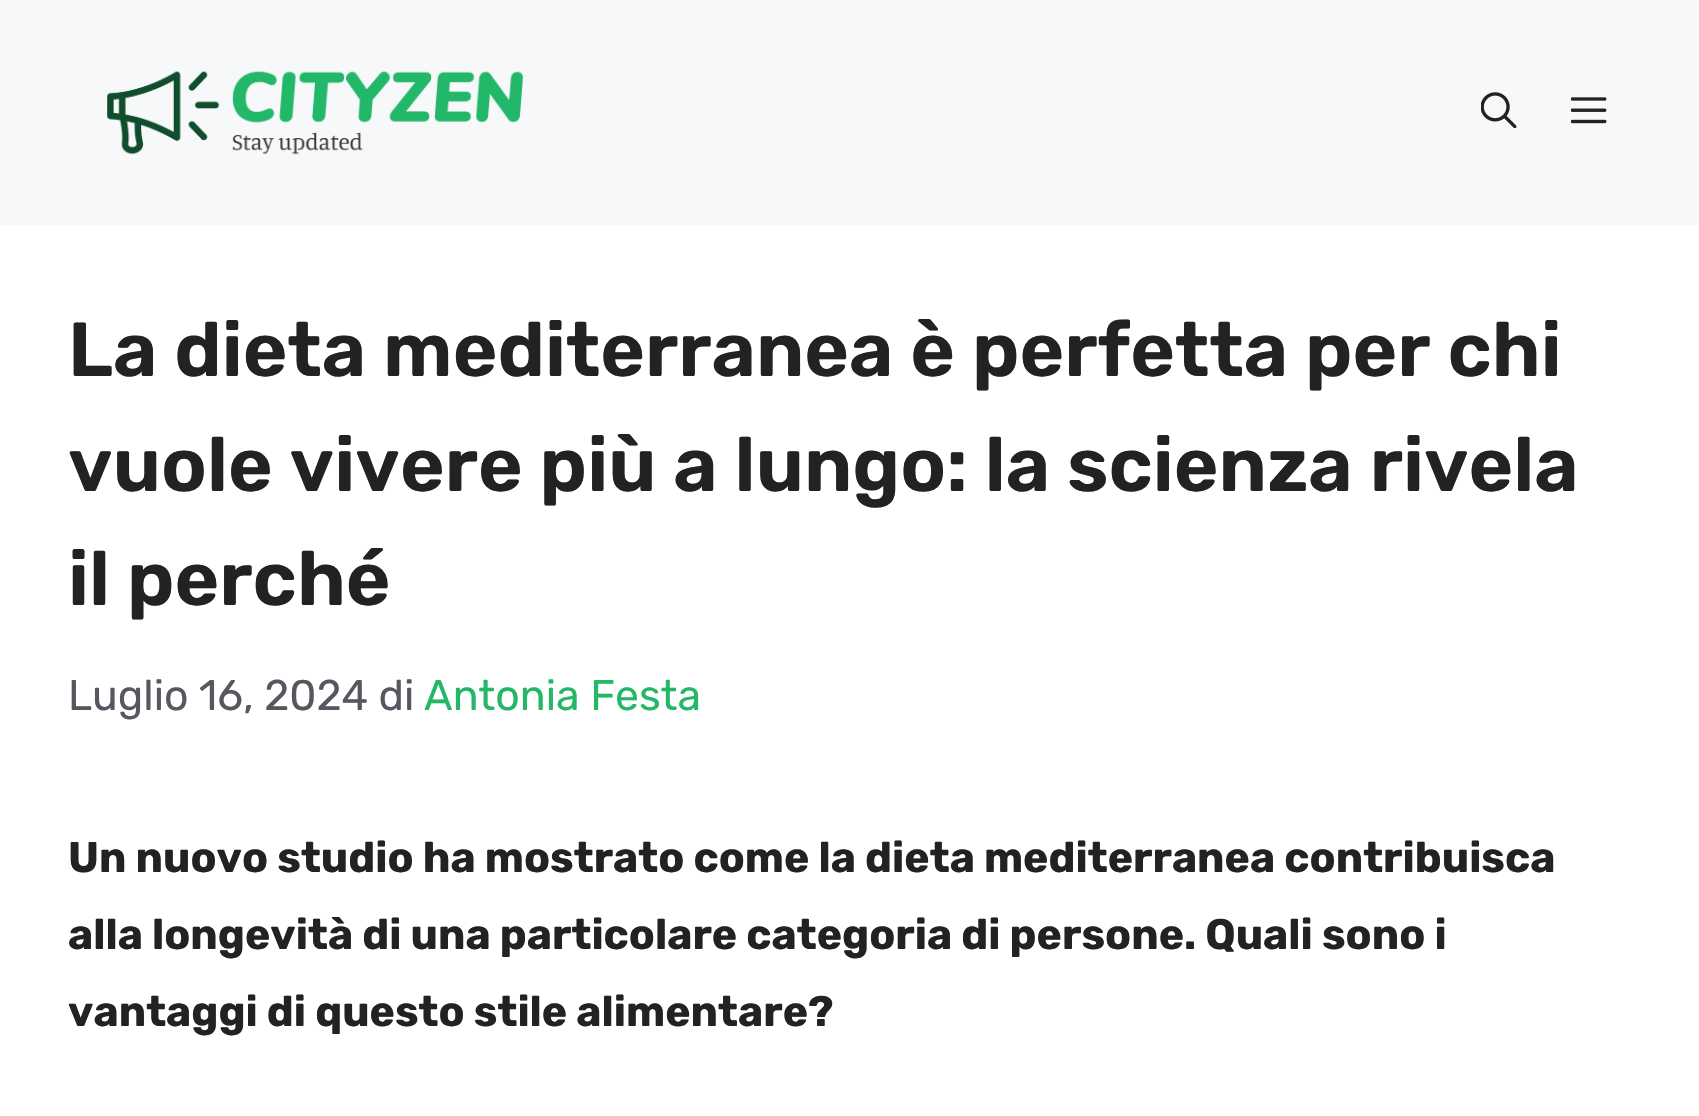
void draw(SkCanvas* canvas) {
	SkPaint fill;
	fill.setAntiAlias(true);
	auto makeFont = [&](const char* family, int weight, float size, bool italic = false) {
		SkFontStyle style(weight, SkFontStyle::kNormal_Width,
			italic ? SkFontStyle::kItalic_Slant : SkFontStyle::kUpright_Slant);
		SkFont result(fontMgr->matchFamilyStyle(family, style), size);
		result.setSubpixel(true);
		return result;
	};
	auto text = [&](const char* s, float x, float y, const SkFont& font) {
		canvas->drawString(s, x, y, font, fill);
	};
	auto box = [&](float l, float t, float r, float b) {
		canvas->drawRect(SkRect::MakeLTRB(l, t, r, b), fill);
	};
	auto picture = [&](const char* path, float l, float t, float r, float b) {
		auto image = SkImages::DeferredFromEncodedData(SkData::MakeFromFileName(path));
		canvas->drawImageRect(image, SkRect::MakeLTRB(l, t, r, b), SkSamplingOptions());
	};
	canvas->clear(0xFFFFFFFF);
	fill.setColor(0xFFF7F8F9);
	box(0, 0, 1699, 225);
	picture("image0.png", 107, 71, 523, 155);
	picture("image1.png", 1481, 92, 1517, 128);
	picture("image2.png", 1571, 97, 1607, 124);
	auto font1 = makeFont("Rubik", 600, 76.5f);
	fill.setColor(0xFF222222);
	text("La dieta mediterranea è perfetta per chi", 68, 376, font1);
	text("vuole vivere più a lungo: la scienza rivela", 68, 491, font1);
	text("il perché", 68, 605, font1);
	auto font2 = makeFont("Rubik", 400, 42.75f);
	fill.setColor(0xFF575760);
	text("Luglio 16, 2024 di", 68, 710, font2);
	fill.setColor(0xFF25B768);
	text("Antonia Festa", 424, 710, font2);
	auto font3 = makeFont("Rubik", 700, 42.75f);
	fill.setColor(0xFF222222);
	text("Un nuovo studio ha mostrato come la dieta mediterranea contribuisca", 68, 872, font3);
	text("alla longevità di una particolare categoria di persone. Quali sono i", 68, 949, font3);
	text("vantaggi di questo stile alimentare?", 68, 1026, font3);
}
